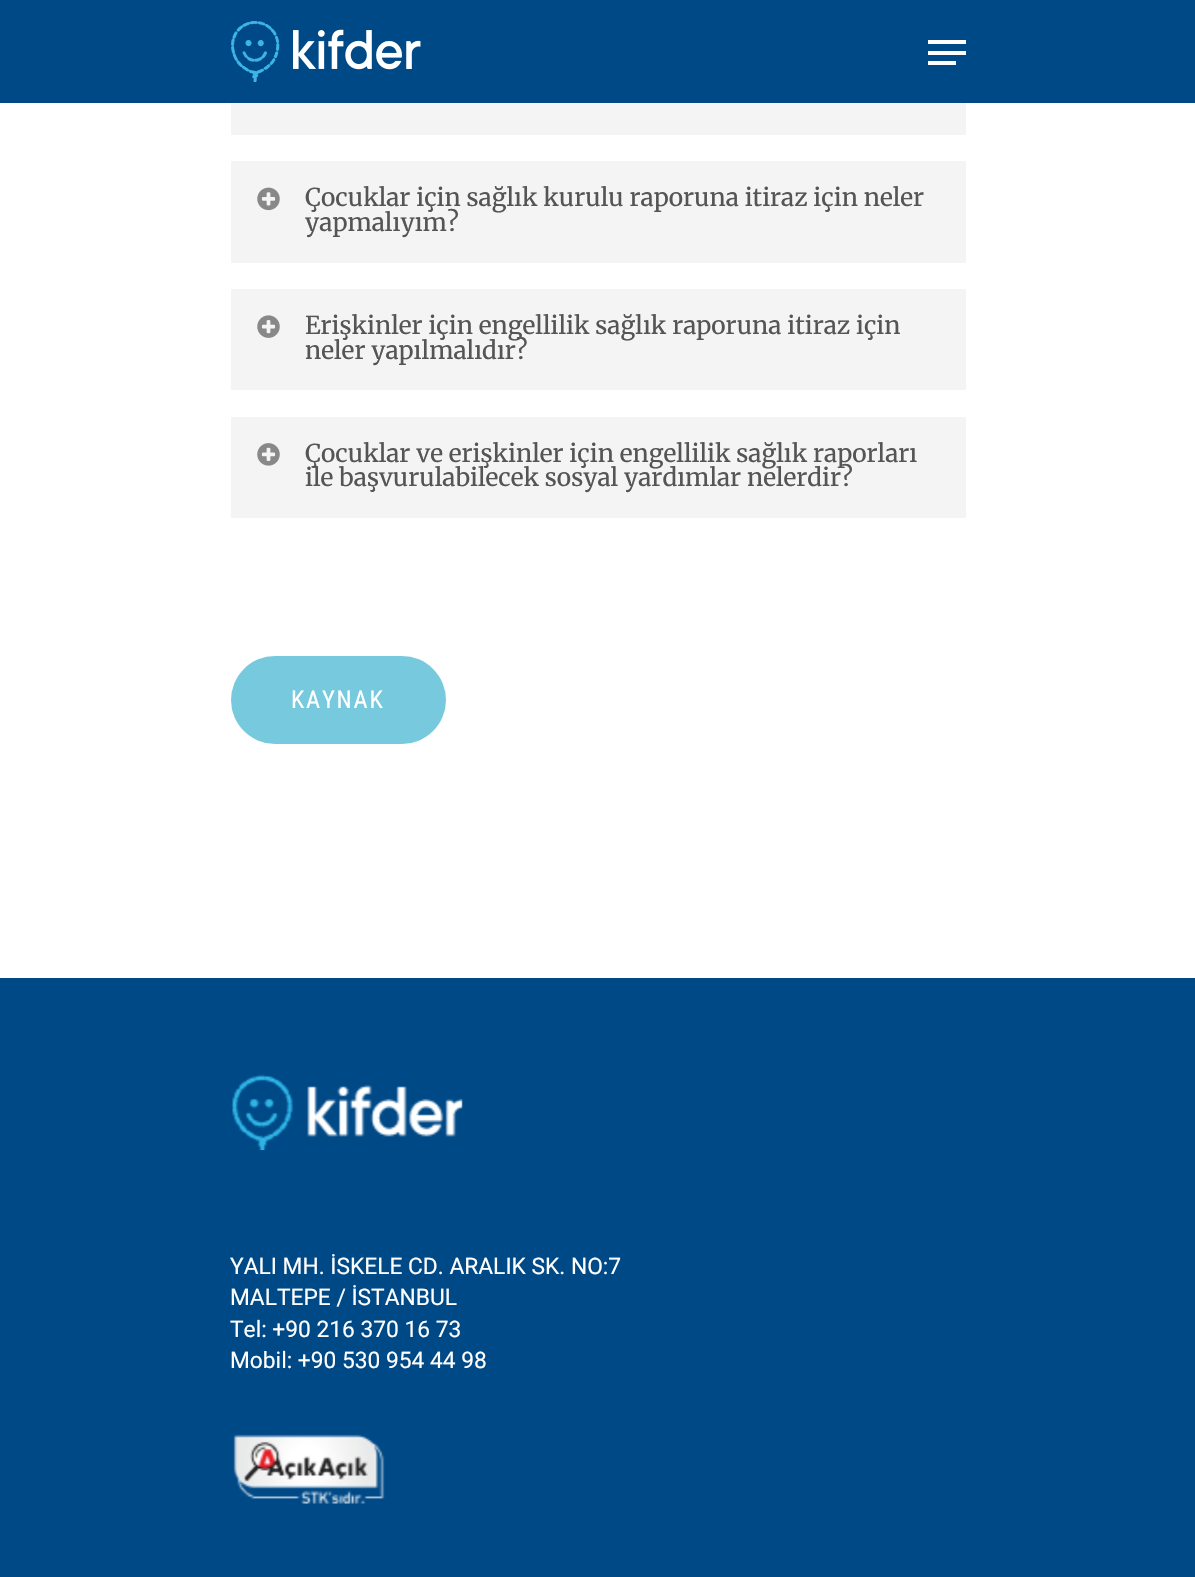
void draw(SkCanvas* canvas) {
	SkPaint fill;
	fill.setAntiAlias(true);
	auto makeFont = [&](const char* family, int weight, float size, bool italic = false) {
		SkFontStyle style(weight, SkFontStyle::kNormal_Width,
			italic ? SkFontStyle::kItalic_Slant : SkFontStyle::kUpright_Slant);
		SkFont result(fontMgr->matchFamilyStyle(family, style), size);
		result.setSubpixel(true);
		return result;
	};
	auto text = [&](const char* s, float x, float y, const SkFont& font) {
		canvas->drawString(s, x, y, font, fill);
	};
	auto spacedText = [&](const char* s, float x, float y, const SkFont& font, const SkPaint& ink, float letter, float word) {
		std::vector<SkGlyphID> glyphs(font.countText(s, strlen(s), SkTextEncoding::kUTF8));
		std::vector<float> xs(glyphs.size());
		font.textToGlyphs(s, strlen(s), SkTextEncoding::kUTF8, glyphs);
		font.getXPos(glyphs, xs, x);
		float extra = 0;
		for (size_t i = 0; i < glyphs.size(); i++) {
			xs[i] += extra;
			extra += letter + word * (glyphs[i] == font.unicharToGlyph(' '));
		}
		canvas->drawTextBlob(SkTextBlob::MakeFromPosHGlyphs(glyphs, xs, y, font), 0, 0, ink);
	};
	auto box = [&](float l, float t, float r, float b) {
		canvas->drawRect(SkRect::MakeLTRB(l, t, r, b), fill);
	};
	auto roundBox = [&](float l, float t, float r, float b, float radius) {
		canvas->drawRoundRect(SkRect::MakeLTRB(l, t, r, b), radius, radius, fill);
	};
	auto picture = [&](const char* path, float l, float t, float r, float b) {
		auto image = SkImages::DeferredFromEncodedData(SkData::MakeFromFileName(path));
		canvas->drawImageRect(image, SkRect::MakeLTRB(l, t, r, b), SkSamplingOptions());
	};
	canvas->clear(0xFFFFFFFF);
	fill.setColor(0xFF004987);
	box(0, 0, 1195, 103);
	picture("image0.png", 231, 21, 421, 82);
	fill.setColor(0xFFFFFFFF);
	box(928, 40, 966, 44);
	box(928, 61, 956, 65);
	box(928, 51, 966, 55);
	fill.setColor(0xFFF4F4F4);
	box(231, 103, 966, 135);
	box(231, 161, 966, 263);
	picture("image1.png", 257, 187, 280, 211);
	box(231, 289, 966, 390);
	picture("image2.png", 257, 315, 280, 338);
	box(231, 417, 966, 518);
	picture("image3.png", 257, 443, 280, 466);
	fill.setColor(0xFF77CADE);
	roundBox(231, 656, 446, 744, 44);
	fill.setColor(0xFF004987);
	box(0, 978, 1195, 1577);
	picture("image4.png", 231, 1074, 463, 1150);
	picture("image5.png", 233, 1434, 385, 1504);
	auto font1 = makeFont("Merriweather", 400, 24.5f);
	fill.setColor(0xFF555555);
	text("Çocuklar için sağlık kurulu raporuna itiraz için neler", 305, 206, font1);
	text("yapmalıyım?", 305, 231, font1);
	text("Erişkinler için engellilik sağlık raporuna itiraz için", 305, 334, font1);
	text("neler yapılmalıdır?", 305, 359, font1);
	text("Çocuklar ve erişkinler için engellilik sağlık raporları", 305, 462, font1);
	text("ile başvurulabilecek sosyal yardımlar nelerdir?", 305, 486, font1);
	auto font2 = makeFont("Roboto Condensed", 400, 24.5f);
	fill.setColor(0xFFFFFFFF);
	spacedText("KAYNAK", 291, 708, font2, fill, 1.75f, 0);
	auto font3 = makeFont("Roboto", 400, 22.75f);
	text("YALI MH. İSKELE CD. ARALIK SK. NO:7", 230, 1274, font3);
	text("MALTEPE / İSTANBUL", 230, 1305, font3);
	text("Tel: +90 216 370 16 73", 230, 1337, font3);
	text("Mobil: +90 530 954 44 98", 230, 1368, font3);
}
